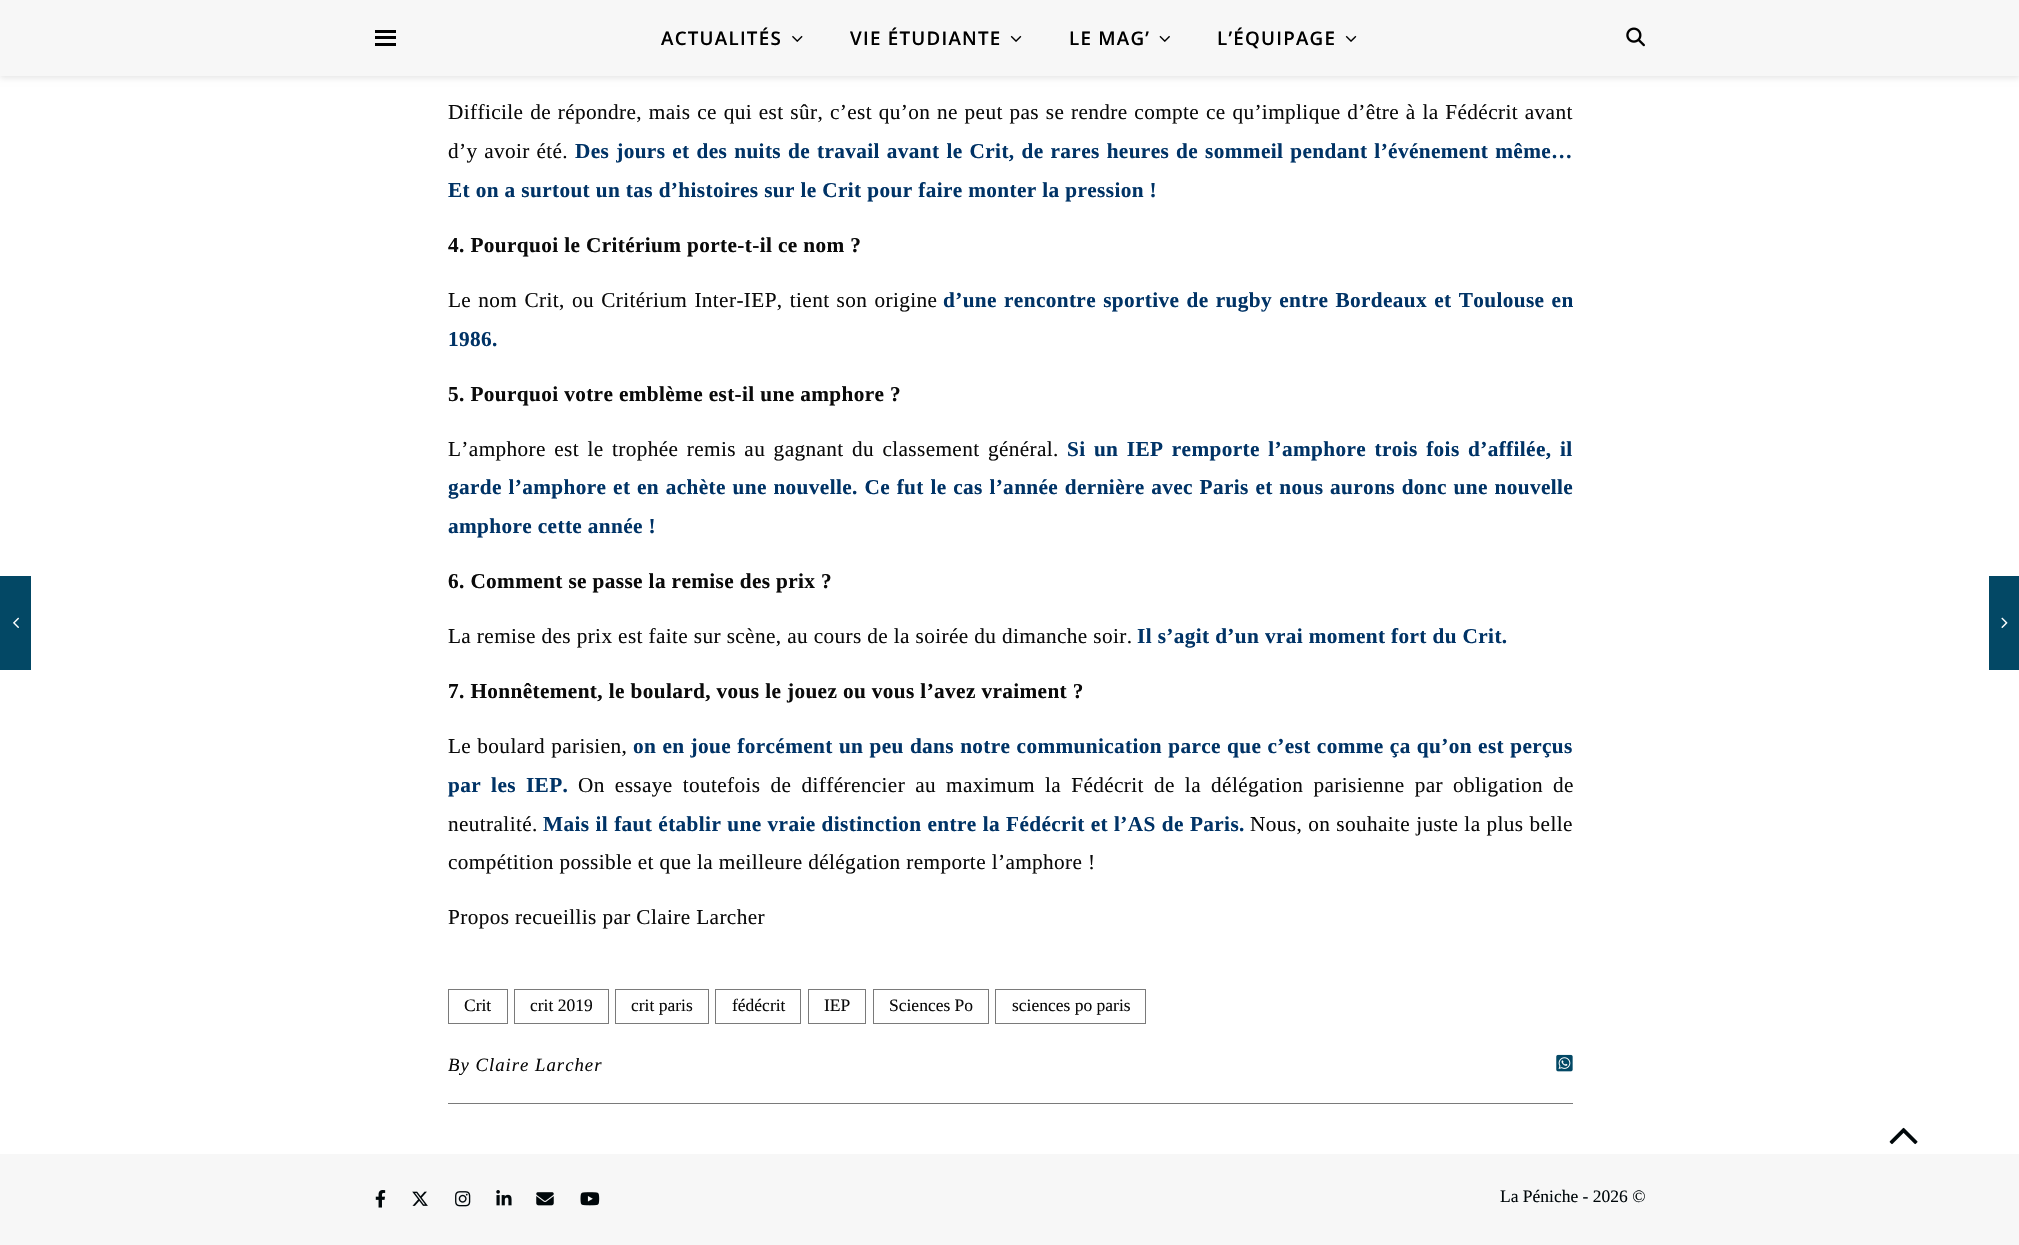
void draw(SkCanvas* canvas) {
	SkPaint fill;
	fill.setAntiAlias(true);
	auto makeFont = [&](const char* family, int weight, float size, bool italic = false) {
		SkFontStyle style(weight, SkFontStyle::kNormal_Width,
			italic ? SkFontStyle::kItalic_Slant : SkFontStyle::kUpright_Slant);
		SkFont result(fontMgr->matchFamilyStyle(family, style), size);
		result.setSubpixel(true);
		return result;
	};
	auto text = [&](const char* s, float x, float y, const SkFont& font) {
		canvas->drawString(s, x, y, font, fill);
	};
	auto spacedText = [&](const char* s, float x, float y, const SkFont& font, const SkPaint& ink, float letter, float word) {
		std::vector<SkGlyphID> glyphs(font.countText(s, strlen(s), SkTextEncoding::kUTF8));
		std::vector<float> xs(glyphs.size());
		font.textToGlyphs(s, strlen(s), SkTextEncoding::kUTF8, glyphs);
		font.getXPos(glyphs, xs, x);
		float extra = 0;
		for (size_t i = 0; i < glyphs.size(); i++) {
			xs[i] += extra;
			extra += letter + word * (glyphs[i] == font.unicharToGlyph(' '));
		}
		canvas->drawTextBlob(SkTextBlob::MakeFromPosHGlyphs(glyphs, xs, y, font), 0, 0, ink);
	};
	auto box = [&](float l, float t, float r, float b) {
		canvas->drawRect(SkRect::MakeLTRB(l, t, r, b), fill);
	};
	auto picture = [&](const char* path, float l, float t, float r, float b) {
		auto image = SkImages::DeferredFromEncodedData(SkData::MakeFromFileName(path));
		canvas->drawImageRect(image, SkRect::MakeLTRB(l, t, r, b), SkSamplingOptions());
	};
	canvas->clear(0xFFFFFFFF);
	fill.setColor(0x1A000000);
	fill.setMaskFilter(SkMaskFilter::MakeBlur(kNormal_SkBlurStyle, 3));
	canvas->drawRect(SkRect::MakeLTRB(0, 1, 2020, 78), fill);
	fill.setMaskFilter(nullptr);
	fill.setColor(0xFFF7F7F7);
	box(0, 0, 2019, 76);
	fill.setColor(0xFF000000);
	box(375, 30, 396, 33);
	box(375, 36, 396, 39);
	box(375, 43, 396, 46);
	picture("image0.png", 792, 35, 803, 42);
	picture("image1.png", 1010, 35, 1022, 42);
	picture("image2.png", 1159, 35, 1170, 42);
	picture("image1.png", 1345, 35, 1357, 42);
	picture("image3.png", 1626, 27, 1645, 47);
	fill.setColor(0xFF034865);
	box(0, 576, 31, 670);
	picture("image4.png", 13, 617, 19, 628);
	fill.setColor(0xFF7A7A7A);
	box(448, 1103, 1573, 1104);
	fill.setStyle(SkPaint::kStroke_Style);
	fill.setStrokeWidth(1);
	canvas->drawRect(SkRect::MakeLTRB(448.5f, 989.5f, 507.5f, 1023.5f), fill);
	canvas->drawRect(SkRect::MakeLTRB(514.5f, 989.5f, 608.5f, 1023.5f), fill);
	canvas->drawRect(SkRect::MakeLTRB(615.5f, 989.5f, 708.5f, 1023.5f), fill);
	canvas->drawRect(SkRect::MakeLTRB(715.5f, 989.5f, 800.5f, 1023.5f), fill);
	canvas->drawRect(SkRect::MakeLTRB(808.5f, 989.5f, 865.5f, 1023.5f), fill);
	canvas->drawRect(SkRect::MakeLTRB(873.5f, 989.5f, 988.5f, 1023.5f), fill);
	canvas->drawRect(SkRect::MakeLTRB(995.5f, 989.5f, 1145.5f, 1023.5f), fill);
	picture("image5.png", 1556, 1054, 1573, 1072);
	fill.setStyle(SkPaint::kFill_Style);
	fill.setColor(0xFF034865);
	box(1989, 576, 2019, 670);
	picture("image6.png", 2001, 617, 2008, 628);
	fill.setColor(0xFFF7F7F7);
	box(0, 1154, 2019, 1245);
	picture("image7.png", 1889, 1127, 1918, 1145);
	picture("image8.png", 375, 1190, 386, 1208);
	picture("image9.png", 412, 1191, 428, 1206);
	picture("image10.png", 455, 1191, 471, 1207);
	picture("image11.png", 496, 1190, 512, 1206);
	picture("image12.png", 536, 1192, 554, 1206);
	picture("image13.png", 580, 1192, 600, 1206);
	auto font1 = makeFont("Open Sans", 600, 18.75f);
	fill.setColor(0xFF000000);
	spacedText("ACTUALITÉS", 661, 45, font1, fill, 1.25f, 0);
	spacedText("VIE ÉTUDIANTE", 850, 45, font1, fill, 1.25f, 0);
	spacedText("LE MAG’", 1069, 45, font1, fill, 1.25f, 0);
	spacedText("L’ÉQUIPAGE", 1217, 45, font1, fill, 1.25f, 0);
	auto font2 = makeFont("Liberation Serif", 400, 21.25f);
	fill.setColor(0xFF0A0A0A);
	spacedText("Difficile de répondre, mais ce qui est sûr, c’est qu’on ne peut pas se rendre compte ce qu’implique d’être à la Fédécrit avant", 448, 119, font2, fill, 0.38f, 1.1f);
	spacedText("d’y avoir été.", 448, 158, font2, fill, 0.38f, 1);
	auto font3 = makeFont("Liberation Serif", 700, 21.25f);
	fill.setColor(0xFF003366);
	spacedText("Des jours et des nuits de travail avant le Crit, de rares heures de sommeil pendant l’événement même…", 575, 158, font3, fill, 0.38f, 1.3f);
	spacedText("Et on a surtout un tas d’histoires sur le Crit pour faire monter la pression !", 448, 197, font3, fill, 0.38f, 0);
	fill.setColor(0xFF0A0A0A);
	spacedText("4. Pourquoi le Critérium porte-t-il ce nom ?", 448, 252, font3, fill, 0.38f, 0);
	spacedText("Le nom Crit, ou Critérium Inter-IEP, tient son origine", 448, 307, font2, fill, 0.38f, 1.5f);
	fill.setColor(0xFF003366);
	spacedText("d’une rencontre sportive de rugby entre Bordeaux et Toulouse en", 943, 307, font3, fill, 0.38f, 1.5f);
	spacedText("1986.", 448, 346, font3, fill, 0.38f, 0);
	fill.setColor(0xFF0A0A0A);
	spacedText("5. Pourquoi votre emblème est-il une amphore ?", 448, 401, font3, fill, 0.38f, 0);
	spacedText("L’amphore est le trophée remis au gagnant du classement général.", 448, 456, font2, fill, 0.38f, 2.75f);
	fill.setColor(0xFF003366);
	spacedText("Si un IEP remporte l’amphore trois fois d’affilée, il", 1067, 456, font3, fill, 0.38f, 2.75f);
	spacedText("garde l’amphore et en achète une nouvelle. Ce fut le cas l’année dernière avec Paris et nous aurons donc une nouvelle", 448, 494, font3, fill, 0.38f, 1);
	spacedText("amphore cette année !", 448, 533, font3, fill, 0.38f, 0);
	fill.setColor(0xFF0A0A0A);
	spacedText("6. Comment se passe la remise des prix ?", 448, 588, font3, fill, 0.38f, 0);
	spacedText("La remise des prix est faite sur scène, au cours de la soirée du dimanche soir.", 448, 643, font2, fill, 0.38f, 0);
	fill.setColor(0xFF003366);
	spacedText("Il s’agit d’un vrai moment fort du Crit.", 1137, 643, font3, fill, 0.38f, 0);
	fill.setColor(0xFF0A0A0A);
	spacedText("7. Honnêtement, le boulard, vous le jouez ou vous l’avez vraiment ?", 448, 698, font3, fill, 0.38f, 0);
	spacedText("Le boulard parisien,", 448, 753, font2, fill, 0.38f, 0.5f);
	fill.setColor(0xFF003366);
	spacedText("on en joue forcément un peu dans notre communication parce que c’est comme ça qu’on est perçus", 633, 753, font3, fill, 0.38f, 0.5f);
	spacedText("par les IEP.", 448, 792, font3, fill, 0.38f, 4.4f);
	fill.setColor(0xFF0A0A0A);
	spacedText("On essaye toutefois de différencier au maximum la Fédécrit de la délégation parisienne par obligation de", 578, 792, font2, fill, 0.38f, 4.4f);
	spacedText("neutralité.", 448, 831, font2, fill, 0.38f, 0);
	fill.setColor(0xFF003366);
	spacedText("Mais il faut établir une vraie distinction entre la Fédécrit et l’AS de Paris.", 543, 831, font3, fill, 0.38f, 0.4f);
	fill.setColor(0xFF0A0A0A);
	spacedText("Nous, on souhaite juste la plus belle", 1250, 831, font2, fill, 0.38f, 0.4f);
	spacedText("compétition possible et que la meilleure délégation remporte l’amphore !", 448, 869, font2, fill, 0.38f, 0);
	spacedText("Propos recueillis par Claire Larcher", 448, 924, font2, fill, 0.38f, 0);
	auto font4 = makeFont("Liberation Serif", 400, 17.5f);
	text("Crit", 464, 1011, font4);
	text("crit 2019", 530, 1011, font4);
	text("crit paris", 631, 1011, font4);
	text("fédécrit", 732, 1011, font4);
	text("IEP", 824, 1011, font4);
	text("Sciences Po", 889, 1011, font4);
	text("sciences po paris", 1012, 1011, font4);
	auto font5 = makeFont("Liberation Serif", 400, 18.75f, true);
	spacedText("By Claire Larcher", 448, 1071, font5, fill, 1, 0);
	fill.setColor(0xFF00070A);
	text("La Péniche - 2026 ©", 1500, 1202, font4);
}
